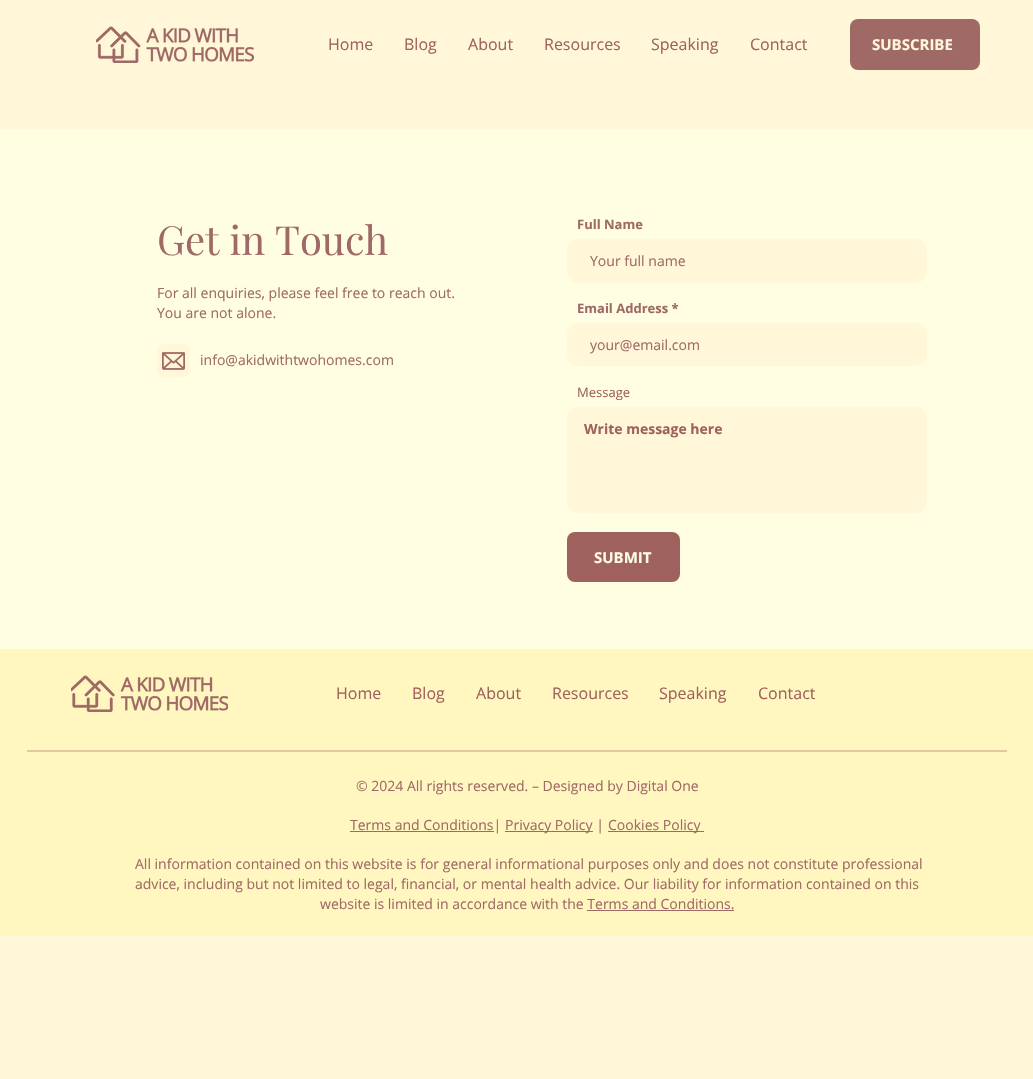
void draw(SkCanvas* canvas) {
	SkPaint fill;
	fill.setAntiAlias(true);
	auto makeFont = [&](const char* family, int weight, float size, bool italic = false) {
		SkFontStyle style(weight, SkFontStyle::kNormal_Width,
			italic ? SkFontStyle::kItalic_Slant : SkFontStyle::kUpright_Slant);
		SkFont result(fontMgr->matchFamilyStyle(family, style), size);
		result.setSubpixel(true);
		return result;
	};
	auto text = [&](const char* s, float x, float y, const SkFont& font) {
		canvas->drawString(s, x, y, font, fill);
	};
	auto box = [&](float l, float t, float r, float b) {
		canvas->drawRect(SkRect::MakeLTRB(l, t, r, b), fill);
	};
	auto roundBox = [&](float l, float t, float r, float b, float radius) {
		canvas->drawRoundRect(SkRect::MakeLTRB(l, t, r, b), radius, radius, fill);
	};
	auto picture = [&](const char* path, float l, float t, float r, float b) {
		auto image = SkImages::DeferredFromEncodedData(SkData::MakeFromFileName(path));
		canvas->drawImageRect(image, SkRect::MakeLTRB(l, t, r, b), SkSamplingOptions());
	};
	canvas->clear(0xFFFFF7D8);
	picture("image0.png", 96, 26, 254, 63);
	fill.setColor(0xFF9F6A66);
	roundBox(850, 19, 980, 70, 8);
	fill.setColor(0xFFFFFDE2);
	box(0, 129, 1033, 649);
	fill.setColor(0xFFFFF7D8);
	roundBox(567, 239, 927, 283, 12);
	roundBox(567, 323, 927, 366, 12);
	roundBox(567, 407, 927, 513, 12);
	fill.setColor(0xFF9F615D);
	roundBox(567, 532, 680, 582, 8);
	picture("image1.png", 157, 344, 190, 377);
	picture("image2.png", 162, 352, 185, 370);
	fill.setColor(0xFFFFF6C0);
	box(0, 649, 1033, 936);
	picture("image3.png", 71, 675, 228, 712);
	fill.setColor(0xFFE2C9A2);
	box(27, 750, 1007, 752);
	fill.setColor(0xFF9F6A66);
	box(350, 831, 494, 832);
	box(505, 831, 593, 832);
	box(608, 831, 704, 832);
	box(587, 910, 734, 911);
	auto font1 = makeFont("Open Sans", 400, 16);
	fill.setColor(0xFF9F615D);
	text("Home", 328, 50, font1);
	text("Blog", 404, 50, font1);
	text("About", 468, 50, font1);
	text("Resources", 544, 50, font1);
	text("Speaking", 651, 50, font1);
	text("Contact", 750, 50, font1);
	auto font2 = makeFont("Open Sans", 700, 15);
	fill.setColor(0xFFFFF7D8);
	text("SUBSCRIBE", 872, 50, font2);
	auto font3 = makeFont("Playfair Display", 400, 40);
	fill.setColor(0xFF9F6A66);
	text("Get in Touch", 157, 255, font3);
	auto font4 = makeFont("Open Sans", 700, 13);
	text("Full Name", 577, 229, font4);
	auto font5 = makeFont("Open Sans", 400, 14);
	text("Your full name", 590, 266, font5);
	text("Email Address *", 577, 313, font4);
	canvas->save();
	canvas->clipRect(SkRect::MakeLTRB(590, 335, 923, 354));
	text("your@email.com", 590, 350, font5);
	canvas->restore();
	auto font6 = makeFont("Open Sans", 400, 13);
	fill.setColor(0xFF9F615D);
	text("Message", 577, 397, font6);
	auto font7 = makeFont("Open Sans", 700, 14);
	text("Write message here", 584, 434, font7);
	fill.setColor(0xFFFFFDE2);
	text("SUBMIT", 594, 563, font2);
	fill.setColor(0xFF9F6A66);
	text("For all enquiries, please feel free to reach out.", 157, 298, font5);
	text("You are not alone.", 157, 318, font5);
	text("info@akidwithtwohomes.com", 200, 365, font5);
	fill.setColor(0xFF9F615D);
	text("Home", 336, 699, font1);
	text("Blog", 412, 699, font1);
	text("About", 476, 699, font1);
	text("Resources", 552, 699, font1);
	text("Speaking", 659, 699, font1);
	text("Contact", 758, 699, font1);
	fill.setColor(0xFF9F6A66);
	text("© 2024 All rights reserved. – Designed by Digital One", 356, 791, font5);
	text("Terms and Conditions|", 350, 830, font5);
	text("Privacy Policy |", 505, 830, font5);
	text("Cookies Policy", 608, 830, font5);
	text("All information contained on this website is for general informational purposes only and does not constitute professional", 135, 869, font5);
	text("advice, including but not limited to legal, financial, or mental health advice. Our liability for information contained on this", 135, 889, font5);
	text("website is limited in accordance with the Terms and Conditions.", 320, 909, font5);
}
